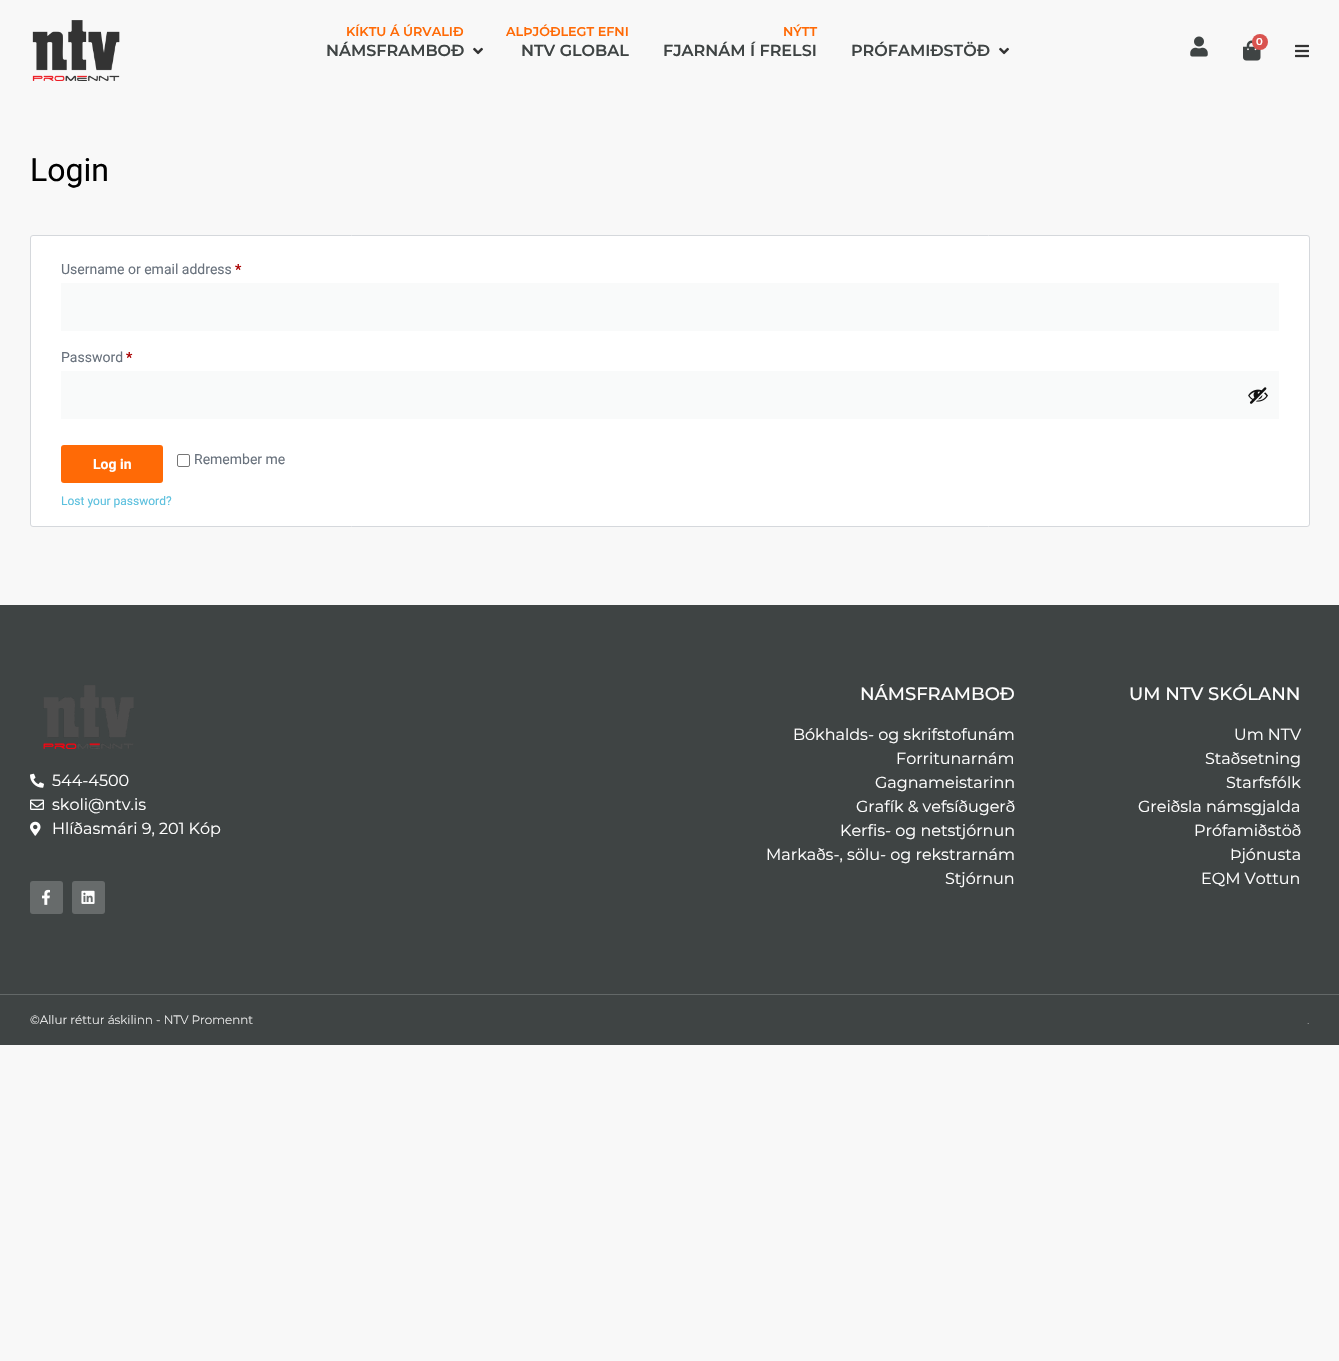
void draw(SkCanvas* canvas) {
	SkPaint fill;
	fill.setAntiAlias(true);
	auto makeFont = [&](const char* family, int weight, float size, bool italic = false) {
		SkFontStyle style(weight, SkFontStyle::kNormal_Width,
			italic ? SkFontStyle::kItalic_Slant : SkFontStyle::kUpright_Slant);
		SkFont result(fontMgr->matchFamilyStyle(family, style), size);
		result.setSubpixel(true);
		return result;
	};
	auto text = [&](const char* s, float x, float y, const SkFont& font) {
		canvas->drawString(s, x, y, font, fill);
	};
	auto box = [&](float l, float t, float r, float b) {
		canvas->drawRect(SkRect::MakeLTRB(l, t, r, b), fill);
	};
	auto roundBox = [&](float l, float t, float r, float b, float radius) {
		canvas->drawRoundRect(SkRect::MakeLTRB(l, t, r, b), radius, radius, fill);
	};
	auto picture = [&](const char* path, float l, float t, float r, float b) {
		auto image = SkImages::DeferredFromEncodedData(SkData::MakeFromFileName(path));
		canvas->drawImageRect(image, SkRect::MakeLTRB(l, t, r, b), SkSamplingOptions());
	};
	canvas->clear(0xFFF8F8F8);
	picture("image0.png", 32, 20, 120, 81);
	picture("image1.png", 473, 47, 483, 55);
	picture("image1.png", 999, 47, 1009, 55);
	picture("image2.png", 1190, 36, 1208, 57);
	picture("image3.png", 1243, 40, 1261, 61);
	fill.setColor(0xFFD9534F);
	canvas->drawCircle(1260, 42, 8, fill);
	picture("image4.png", 1295, 44, 1309, 58);
	fill.setColor(0xFFFFFFFF);
	canvas->drawRoundRect(SkRect::MakeLTRB(30.5f, 235.5f, 1309.5f, 526.5f), 2.5f, 2.5f, fill);
	fill.setStyle(SkPaint::kStroke_Style);
	fill.setStrokeWidth(1);
	fill.setColor(0xFFD5D8DC);
	canvas->drawRoundRect(SkRect::MakeLTRB(30.5f, 235.5f, 1309.5f, 526.5f), 2.5f, 2.5f, fill);
	fill.setStyle(SkPaint::kFill_Style);
	fill.setColor(0xFFF9FAFA);
	box(61, 283, 1279, 331);
	box(61, 371, 1279, 419);
	picture("image5.png", 1248, 387, 1268, 404);
	fill.setColor(0xFFFF6A06);
	roundBox(61, 445, 163, 483, 3);
	fill.setStyle(SkPaint::kStroke_Style);
	fill.setColor(0xFF767676);
	canvas->drawRoundRect(SkRect::MakeLTRB(177.5f, 454.5f, 189.5f, 466.5f), 1.5f, 1.5f, fill);
	fill.setStyle(SkPaint::kFill_Style);
	fill.setColor(0xFF3F4444);
	box(0, 605, 1339, 994);
	picture("image6.png", 43, 685, 134, 749);
	picture("image7.png", 30, 773, 44, 788);
	picture("image8.png", 30, 799, 44, 810);
	picture("image9.png", 30, 821, 41, 836);
	fill.setColor(0xFF676B6B);
	roundBox(30, 881, 63, 914, 3);
	picture("image10.png", 42, 889, 50, 905);
	roundBox(72, 881, 105, 914, 3);
	picture("image11.png", 81, 890, 95, 904);
	fill.setColor(0xFF3F4444);
	box(0, 995, 1339, 1045);
	fill.setColor(0xFF636868);
	box(0, 994, 1339, 995);
	auto font1 = makeFont("Montserrat", 600, 12.75f);
	fill.setColor(0xFFFF6A06);
	text("KÍKTU Á ÚRVALIÐ", 346, 36, font1);
	auto font2 = makeFont("Montserrat", 600, 16);
	fill.setColor(0xFF3F4444);
	text("NÁMSFRAMBOÐ", 326, 56, font2);
	fill.setColor(0xFFFF6A06);
	text("ALÞJÓÐLEGT EFNI", 506, 36, font1);
	fill.setColor(0xFF3F4444);
	text("NTV GLOBAL", 521, 56, font2);
	fill.setColor(0xFFFF6A06);
	text("NÝTT", 783, 36, font1);
	fill.setColor(0xFF3F4444);
	text("FJARNÁM Í FRELSI", 663, 56, font2);
	text("PRÓFAMIÐSTÖÐ", 851, 56, font2);
	auto font3 = makeFont("Montserrat", 600, 10);
	fill.setColor(0xFFFFFFFF);
	text("0", 1256, 45, font3);
	auto font4 = makeFont("Roboto", 400, 32);
	fill.setColor(0xFF000000);
	text("Login", 30, 181, font4);
	auto font5 = makeFont("Roboto", 400, 14);
	fill.setColor(0xFF69727D);
	text("Username or email address", 61, 274, font5);
	auto font6 = makeFont("Roboto", 700, 14);
	fill.setColor(0xFFAA0000);
	text("*", 235, 274, font6);
	fill.setColor(0xFF69727D);
	text("Password", 61, 362, font5);
	fill.setColor(0xFFAA0000);
	text("*", 126, 362, font6);
	fill.setColor(0xFFFFFFFF);
	text("Log in", 93, 469, font6);
	fill.setColor(0xFF69727D);
	text("Remember me", 194, 464, font5);
	auto font7 = makeFont("Roboto", 400, 12);
	fill.setColor(0xFF5BC0DE);
	text("Lost your password?", 61, 505, font7);
	auto font8 = makeFont("Montserrat", 400, 16);
	fill.setColor(0xFFFFFFFF);
	text("544-4500", 52, 786, font8);
	text("skoli@ntv.is", 52, 810, font8);
	text("Hlíðasmári 9, 201 Kóp", 52, 834, font8);
	auto font9 = makeFont("Montserrat", 500, 18);
	text("NÁMSFRAMBOÐ", 860, 700, font9);
	text("Bókhalds- og skrifstofunám", 793, 740, font8);
	text("Forritunarnám", 896, 764, font8);
	text("Gagnameistarinn", 875, 788, font8);
	text("Grafík & vefsíðugerð", 856, 812, font8);
	text("Kerfis- og netstjórnun", 840, 836, font8);
	text("Markaðs-, sölu- og rekstrarnám", 766, 860, font8);
	text("Stjórnun", 945, 884, font8);
	text("UM NTV SKÓLANN", 1129, 700, font9);
	text("Um NTV", 1234, 740, font8);
	text("Staðsetning", 1205, 764, font8);
	text("Starfsfólk", 1226, 788, font8);
	text("Greiðsla námsgjalda", 1138, 812, font8);
	text("Prófamiðstöð", 1194, 836, font8);
	text("Þjónusta", 1230, 860, font8);
	text("EQM Vottun", 1201, 884, font8);
	auto font10 = makeFont("Montserrat", 300, 12);
	text("©Allur réttur áskilinn - NTV Promennt", 30, 1024, font10);
	fill.setColor(0xFFADADAD);
	text(".", 1307, 1024, font10);
}
